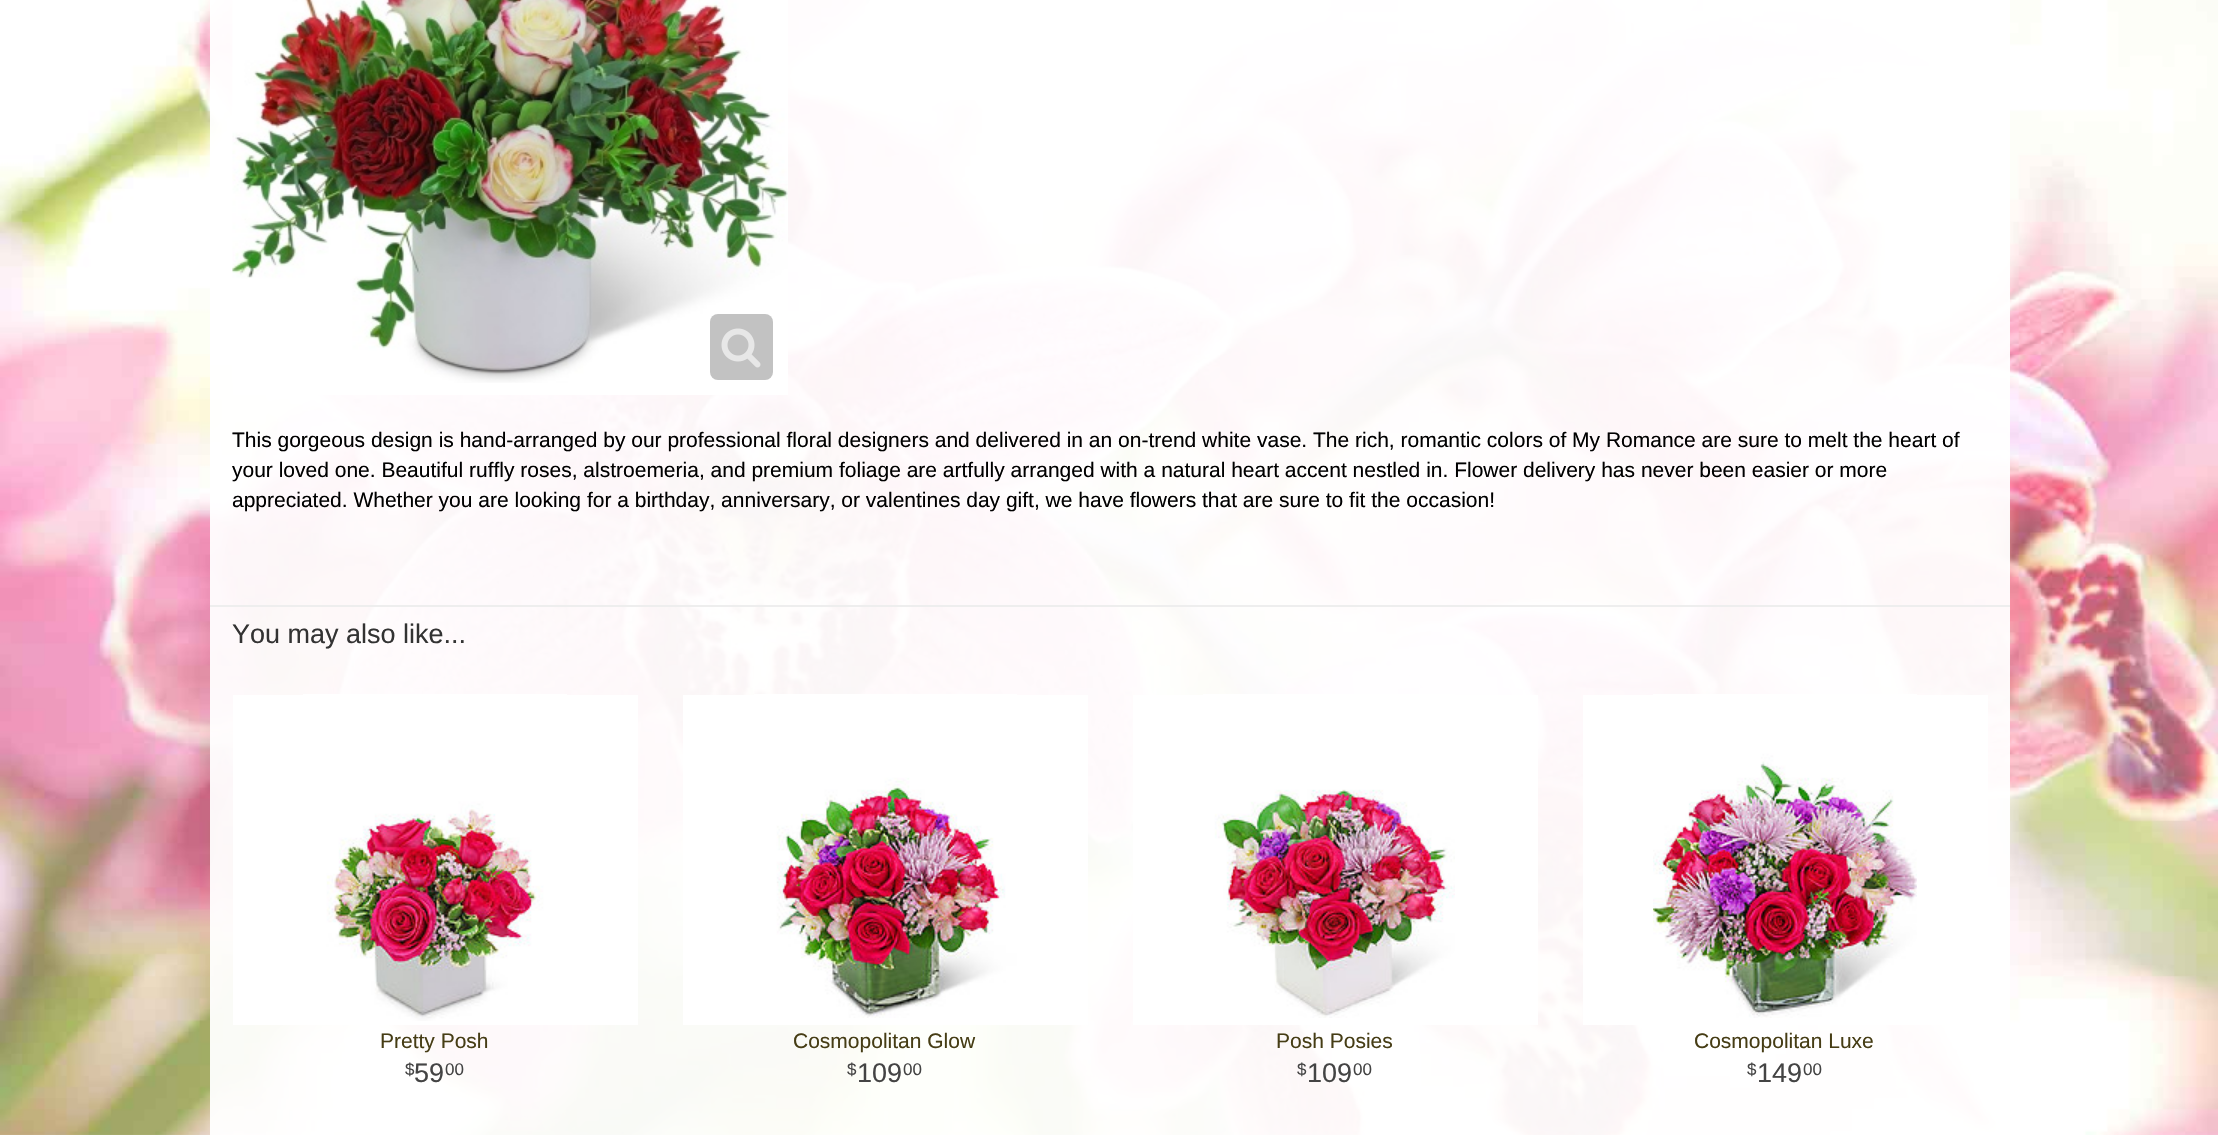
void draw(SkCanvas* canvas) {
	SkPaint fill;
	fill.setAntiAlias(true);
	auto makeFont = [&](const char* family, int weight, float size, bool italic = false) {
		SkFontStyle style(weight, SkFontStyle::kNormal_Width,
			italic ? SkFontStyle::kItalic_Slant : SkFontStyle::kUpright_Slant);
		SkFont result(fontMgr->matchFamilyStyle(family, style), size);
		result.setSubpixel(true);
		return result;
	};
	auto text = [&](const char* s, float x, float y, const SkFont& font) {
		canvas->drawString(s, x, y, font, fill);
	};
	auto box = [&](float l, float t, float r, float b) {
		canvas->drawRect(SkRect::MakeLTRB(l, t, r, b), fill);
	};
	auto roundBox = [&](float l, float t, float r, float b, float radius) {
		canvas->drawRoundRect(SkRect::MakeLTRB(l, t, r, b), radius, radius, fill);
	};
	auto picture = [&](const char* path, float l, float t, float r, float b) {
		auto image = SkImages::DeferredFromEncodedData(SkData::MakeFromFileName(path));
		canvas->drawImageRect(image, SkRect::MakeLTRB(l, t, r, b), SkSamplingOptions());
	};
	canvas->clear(0xFFFFFFFF);
	picture("image0.png", 0, 0, 2218, 1135);
	fill.setColor(0xF0FFFFFF);
	box(210, 0, 2010, 1135);
	fill.setColor(0xFFFFFFFF);
	box(233, 0, 788, 395);
	picture("image1.png", 232, 0, 788, 383);
	fill.setColor(0xFFC2C2C2);
	roundBox(710, 314, 773, 380, 8);
	picture("image2.png", 721, 328, 761, 368);
	fill.setColor(0xFFEEEEEE);
	box(210, 605, 2010, 607);
	fill.setColor(0xFFFFFFFF);
	box(233, 695, 638, 1025);
	picture("image3.png", 303, 694, 567, 1021);
	box(683, 695, 1088, 1025);
	picture("image4.png", 754, 694, 1017, 1018);
	box(1133, 695, 1538, 1025);
	picture("image5.png", 1203, 694, 1455, 1018);
	box(1583, 695, 1988, 1025);
	picture("image6.png", 1653, 694, 1917, 1018);
	auto font1 = makeFont("Liberation Sans", 400, 21);
	fill.setColor(0xFF000000);
	text("This gorgeous design is hand-arranged by our professional floral designers and delivered in an on-trend white vase. The rich, romantic colors of My Romance are sure to melt the heart of", 232, 447, font1);
	text("your loved one. Beautiful ruffly roses, alstroemeria, and premium foliage are artfully arranged with a natural heart accent nestled in. Flower delivery has never been easier or more", 232, 477, font1);
	text("appreciated. Whether you are looking for a birthday, anniversary, or valentines day gift, we have flowers that are sure to fit the occasion!", 232, 507, font1);
	auto font2 = makeFont("Liberation Sans", 400, 27);
	fill.setColor(0xFF333333);
	text("You may also like...", 232, 643, font2);
	fill.setColor(0xFF463D15);
	text("Pretty Posh", 380, 1048, font1);
	auto font3 = makeFont("Liberation Sans", 400, 17);
	fill.setColor(0xFF444444);
	text("$", 405, 1075, font3);
	text("59", 414, 1082, font2);
	text("00", 445, 1075, font3);
	fill.setColor(0xFF463D15);
	text("Cosmopolitan Glow", 793, 1048, font1);
	fill.setColor(0xFF444444);
	text("$", 847, 1075, font3);
	text("109", 857, 1082, font2);
	text("00", 903, 1075, font3);
	fill.setColor(0xFF463D15);
	text("Posh Posies", 1276, 1048, font1);
	fill.setColor(0xFF444444);
	text("$", 1297, 1075, font3);
	text("109", 1307, 1082, font2);
	text("00", 1353, 1075, font3);
	fill.setColor(0xFF463D15);
	text("Cosmopolitan Luxe", 1694, 1048, font1);
	fill.setColor(0xFF444444);
	text("$", 1747, 1075, font3);
	text("149", 1757, 1082, font2);
	text("00", 1803, 1075, font3);
}
